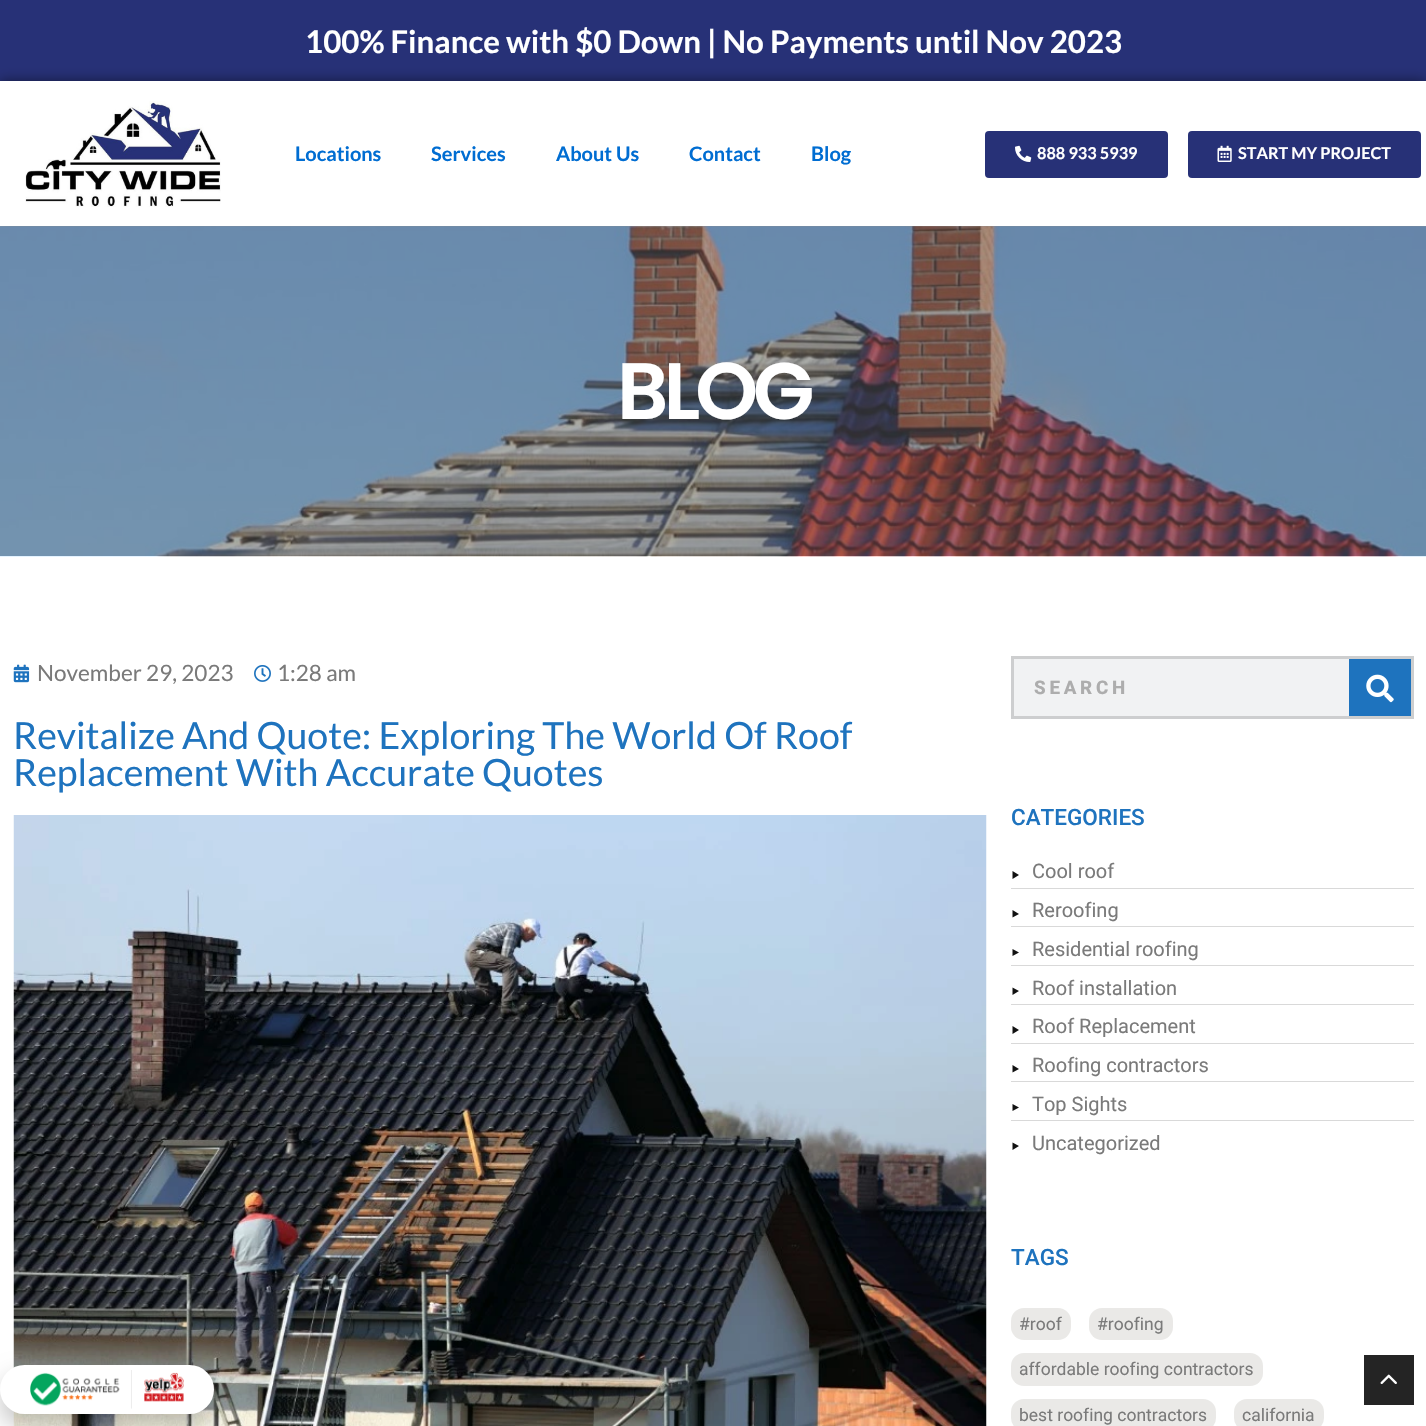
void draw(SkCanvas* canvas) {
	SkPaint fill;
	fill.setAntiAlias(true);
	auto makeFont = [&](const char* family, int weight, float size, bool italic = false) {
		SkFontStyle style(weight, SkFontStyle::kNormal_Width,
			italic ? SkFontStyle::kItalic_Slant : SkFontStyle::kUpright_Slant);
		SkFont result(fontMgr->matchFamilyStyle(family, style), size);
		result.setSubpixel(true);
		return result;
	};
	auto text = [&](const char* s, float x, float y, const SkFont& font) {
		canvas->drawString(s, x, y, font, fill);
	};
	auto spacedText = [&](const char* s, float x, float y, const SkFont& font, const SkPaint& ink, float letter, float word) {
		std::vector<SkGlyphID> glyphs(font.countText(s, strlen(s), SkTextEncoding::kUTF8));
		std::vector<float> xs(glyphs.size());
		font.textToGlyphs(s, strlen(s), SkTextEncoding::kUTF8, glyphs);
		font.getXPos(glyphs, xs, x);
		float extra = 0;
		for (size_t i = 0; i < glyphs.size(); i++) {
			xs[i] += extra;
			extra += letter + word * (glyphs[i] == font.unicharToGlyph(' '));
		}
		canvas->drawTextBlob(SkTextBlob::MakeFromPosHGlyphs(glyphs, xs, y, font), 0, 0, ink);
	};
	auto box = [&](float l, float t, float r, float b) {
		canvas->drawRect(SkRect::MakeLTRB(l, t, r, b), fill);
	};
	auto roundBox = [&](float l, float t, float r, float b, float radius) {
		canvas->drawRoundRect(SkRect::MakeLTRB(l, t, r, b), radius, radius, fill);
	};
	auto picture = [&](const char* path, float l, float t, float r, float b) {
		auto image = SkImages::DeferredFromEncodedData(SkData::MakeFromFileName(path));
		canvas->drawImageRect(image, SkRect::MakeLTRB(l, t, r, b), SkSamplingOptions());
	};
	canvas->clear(0xFFFFFFFF);
	fill.setColor(0xFF273177);
	box(0, 0, 1426, 81);
	fill.setColor(0x80000000);
	fill.setMaskFilter(SkMaskFilter::MakeBlur(kNormal_SkBlurStyle, 6));
	canvas->drawRect(SkRect::MakeLTRB(0, 81, 1426, 226), fill);
	fill.setMaskFilter(nullptr);
	fill.setColor(0xFFFFFFFF);
	box(0, 81, 1426, 226);
	picture("image0.png", 25, 101, 221, 207);
	fill.setColor(0xFF273177);
	roundBox(985, 131, 1168, 178, 4);
	picture("image1.png", 1015, 145, 1032, 162);
	roundBox(1188, 131, 1421, 178, 4);
	picture("image2.png", 1217, 145, 1232, 162);
	picture("image3.png", 0, 226, 1426, 557);
	fill.setColor(0x8054595F);
	box(0, 226, 1426, 556);
	picture("image4.png", 13, 664, 30, 683);
	picture("image5.png", 254, 665, 271, 682);
	picture("image6.png", 13, 815, 987, 1426);
	fill.setColor(0xFFF1F2F3);
	box(1014, 659, 1349, 716);
	fill.setStyle(SkPaint::kStroke_Style);
	fill.setStrokeWidth(3);
	fill.setColor(0xFFCDCECF);
	canvas->drawRect(SkRect::MakeLTRB(1012.5f, 657.5f, 1412.5f, 717.5f), fill);
	fill.setStyle(SkPaint::kFill_Style);
	fill.setColor(0xFF1E73BE);
	box(1349, 659, 1411, 716);
	picture("image7.png", 1366, 674, 1394, 703);
	fill.setColor(0xFFD9D9D9);
	box(1011, 888, 1414, 889);
	fill.setColor(0xFF111111);
	canvas->drawPath(SkPathBuilder().moveTo(1012.5f, 879).lineTo(1012.5f, 871).lineTo(1019, 875).close().moveTo(1012.5f, 917.5f).lineTo(1012.5f, 910).lineTo(1019, 914).close().detach(), fill);
	fill.setColor(0xFFD9D9D9);
	box(1011, 926, 1414, 927);
	box(1011, 965, 1414, 966);
	fill.setColor(0xFF111111);
	canvas->drawPath(SkPathBuilder().moveTo(1012.5f, 956).lineTo(1012.5f, 949).lineTo(1019, 952.5f).close().moveTo(1012.5f, 995).lineTo(1012.5f, 987.5f).lineTo(1019, 991).close().detach(), fill);
	fill.setColor(0xFFD9D9D9);
	box(1011, 1004, 1414, 1005);
	box(1011, 1043, 1414, 1044);
	fill.setColor(0xFF111111);
	canvas->drawPath(SkPathBuilder().moveTo(1012.5f, 1034).lineTo(1012.5f, 1026).lineTo(1019, 1030).close().moveTo(1012.5f, 1072.5f).lineTo(1012.5f, 1065).lineTo(1019, 1069).close().detach(), fill);
	fill.setColor(0xFFD9D9D9);
	box(1011, 1081, 1414, 1082);
	box(1011, 1120, 1414, 1121);
	fill.setColor(0xFF111111);
	canvas->drawPath(SkPathBuilder().moveTo(1012.5f, 1111).lineTo(1012.5f, 1104).lineTo(1019, 1107.5f).close().moveTo(1012.5f, 1150).lineTo(1012.5f, 1142.5f).lineTo(1019, 1146).close().detach(), fill);
	fill.setColor(0xFFEAE9E7);
	roundBox(1011, 1308, 1071, 1340, 13);
	roundBox(1089, 1308, 1173, 1340, 13);
	roundBox(1011, 1353, 1263, 1386, 13);
	roundBox(1011, 1399, 1216, 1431, 13);
	roundBox(1234, 1399, 1324, 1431, 13);
	fill.setColor(0x3B000000);
	fill.setMaskFilter(SkMaskFilter::MakeBlur(kNormal_SkBlurStyle, 12.5f));
	canvas->drawRoundRect(SkRect::MakeLTRB(0, 1378, 214, 1426), 24, 24, fill);
	fill.setMaskFilter(nullptr);
	fill.setColor(0xFFFFFFFF);
	roundBox(0, 1365, 214, 1414, 24.5f);
	picture("image8.png", 30, 1370, 184, 1409);
	fill.setColor(0xFF242424);
	box(1364, 1355, 1414, 1405);
	picture("image9.png", 1380, 1374, 1397, 1384);
	auto font1 = makeFont("Lato", 700, 31.25f);
	fill.setColor(0xFFFFFFFF);
	text("100% Finance with $0 Down | No Payments until Nov 2023", 305, 53, font1);
	auto font2 = makeFont("Lato", 700, 20);
	fill.setColor(0xFF006DD2);
	text("Locations", 295, 161, font2);
	text("Services", 431, 161, font2);
	text("About Us", 556, 161, font2);
	text("Contact", 689, 161, font2);
	text("Blog", 811, 161, font2);
	auto font3 = makeFont("Lato", 700, 16.25f);
	fill.setColor(0xFFFFFFFF);
	text("888 933 5939", 1037, 159, font3);
	text("START MY PROJECT", 1238, 159, font3);
	auto font4 = makeFont("Poppins", 600, 80);
	spacedText("BLOG", 617, 419, font4, fill, -5, 0);
	auto font5 = makeFont("Lato", 400, 22.5f);
	fill.setColor(0xFF7A7A7A);
	text("November 29, 2023", 37, 681, font5);
	text("1:28 am", 277, 681, font5);
	auto font6 = makeFont("Lato", 400, 37.5f);
	fill.setColor(0xFF1E73BE);
	text("Revitalize And Quote: Exploring The World Of Roof", 13, 749, font6);
	text("Replacement With Accurate Quotes", 13, 786, font6);
	auto font7 = makeFont("Roboto", 800, 18.75f);
	fill.setColor(0xFFADADAD);
	spacedText("SEARCH", 1034, 694, font7, fill, 3.75f, 0);
	auto font8 = makeFont("Roboto", 500, 22.5f);
	fill.setColor(0xFF1E73BE);
	text("CATEGORIES", 1011, 825, font8);
	auto font9 = makeFont("Roboto", 400, 20);
	fill.setColor(0xFF7A7A7A);
	text("Cool roof", 1032, 878, font9);
	text("Reroofing", 1032, 917, font9);
	text("Residential roofing", 1032, 956, font9);
	text("Roof installation", 1032, 995, font9);
	text("Roof Replacement", 1032, 1033, font9);
	text("Roofing contractors", 1032, 1072, font9);
	text("Top Sights", 1032, 1111, font9);
	text("Uncategorized", 1032, 1150, font9);
	fill.setColor(0xFF1E73BE);
	text("TAGS", 1011, 1265, font8);
	auto font10 = makeFont("Roboto", 400, 17.5f);
	fill.setColor(0xFF7A7A7A);
	text("#roof", 1019, 1330, font10);
	text("#roofing", 1097, 1330, font10);
	text("affordable roofing contractors", 1019, 1375, font10);
	text("best roofing contractors", 1019, 1421, font10);
	text("california", 1242, 1421, font10);
}
